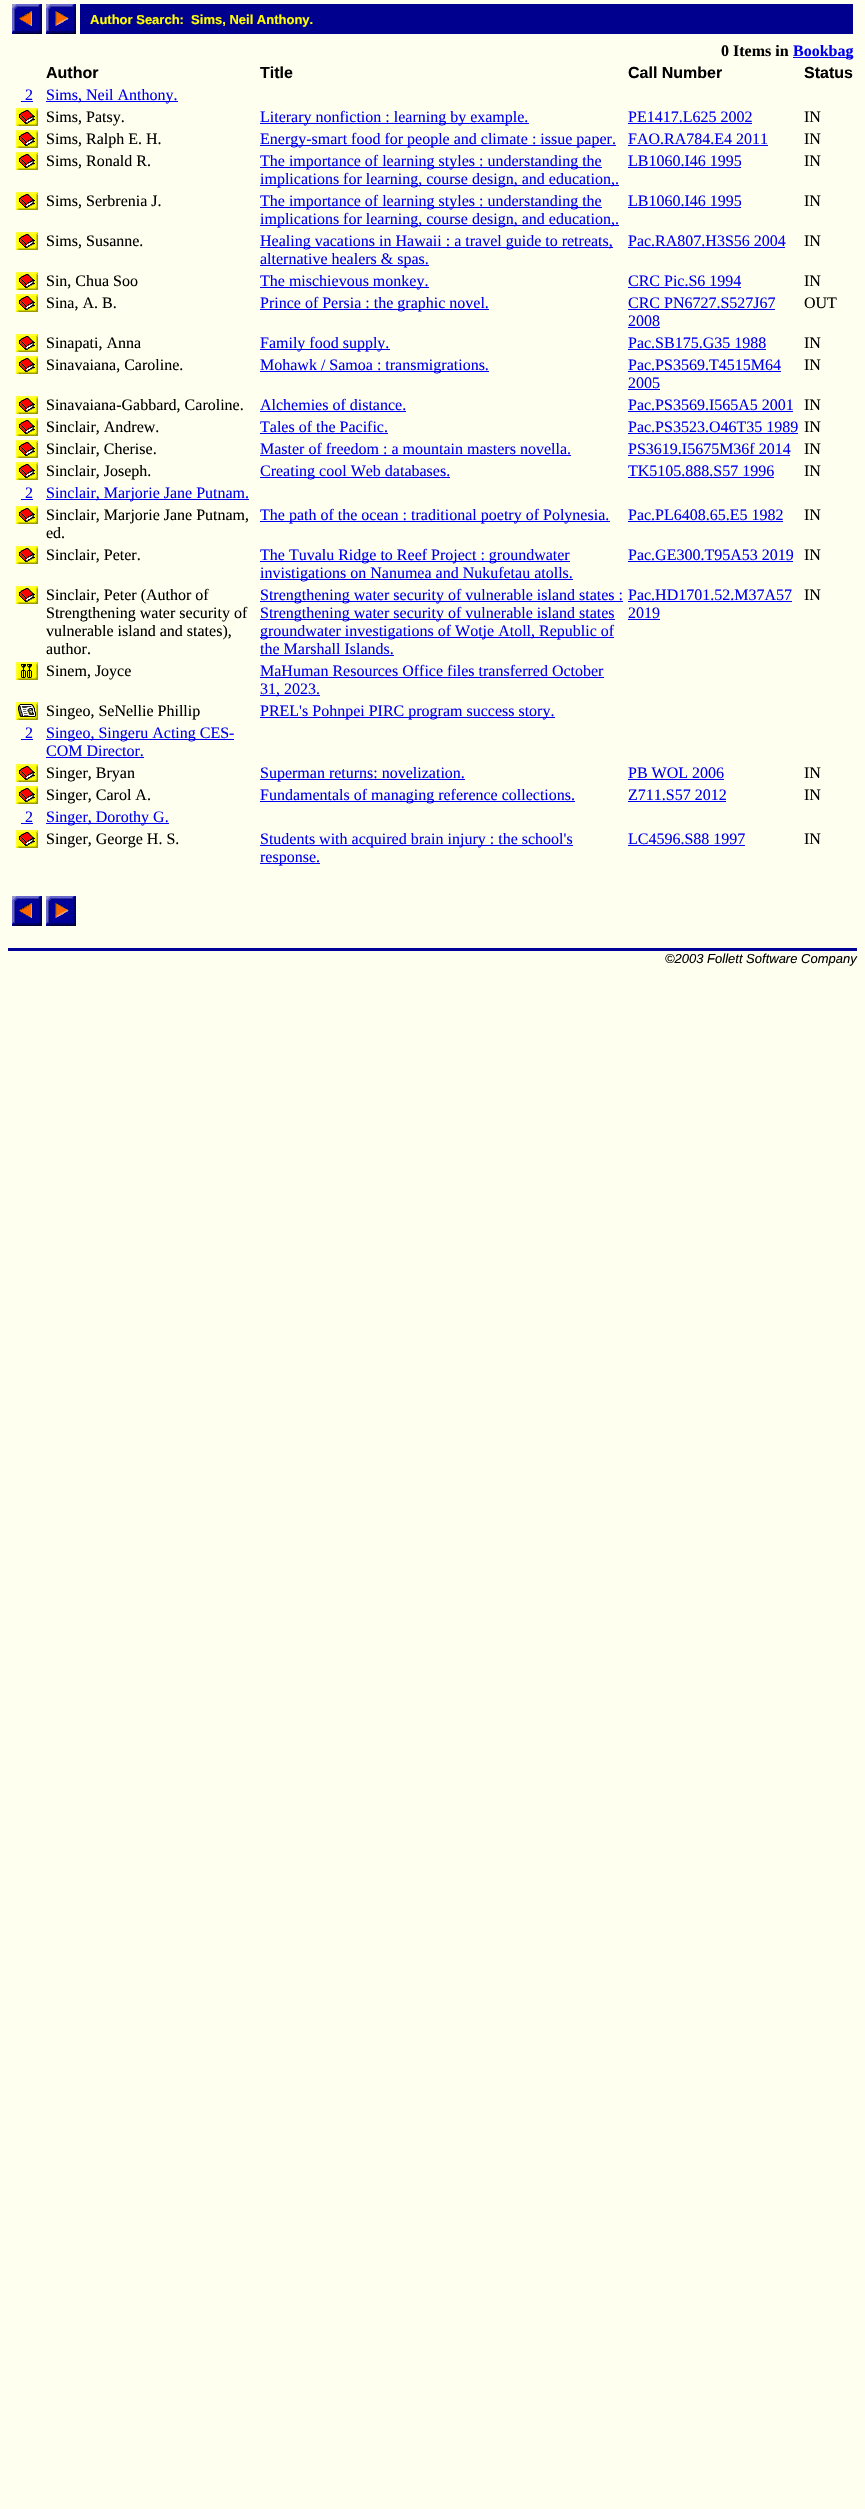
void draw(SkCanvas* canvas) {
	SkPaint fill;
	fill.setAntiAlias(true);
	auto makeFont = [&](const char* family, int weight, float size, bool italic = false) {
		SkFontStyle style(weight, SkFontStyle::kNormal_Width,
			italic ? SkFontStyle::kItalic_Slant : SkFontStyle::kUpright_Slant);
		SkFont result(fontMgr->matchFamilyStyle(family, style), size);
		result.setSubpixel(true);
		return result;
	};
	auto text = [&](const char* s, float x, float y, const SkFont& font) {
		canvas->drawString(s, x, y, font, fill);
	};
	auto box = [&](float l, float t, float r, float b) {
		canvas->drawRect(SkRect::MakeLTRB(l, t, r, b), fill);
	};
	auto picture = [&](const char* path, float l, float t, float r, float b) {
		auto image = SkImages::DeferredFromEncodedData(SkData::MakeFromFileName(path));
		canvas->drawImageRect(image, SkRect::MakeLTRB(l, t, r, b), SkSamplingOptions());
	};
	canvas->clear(0xFFFFFFEF);
	picture("image0.png", 12, 4, 42, 34);
	picture("image1.png", 46, 4, 76, 34);
	fill.setColor(0xFF00008E);
	box(80, 4, 853, 34);
	fill.setColor(0xFF0000EE);
	box(793, 57, 853, 58);
	box(21, 101, 33, 102);
	box(46, 101, 178, 102);
	picture("image2.png", 16, 108, 38, 126);
	box(260, 123, 529, 124);
	box(628, 123, 752, 124);
	picture("image2.png", 16, 130, 38, 148);
	box(260, 145, 616, 146);
	box(628, 145, 768, 146);
	picture("image2.png", 16, 152, 38, 170);
	box(260, 167, 602, 168);
	box(260, 185, 619, 186);
	box(628, 167, 741, 168);
	picture("image2.png", 16, 192, 38, 210);
	box(260, 207, 602, 208);
	box(260, 225, 619, 226);
	box(628, 207, 741, 208);
	picture("image2.png", 16, 232, 38, 250);
	box(260, 247, 613, 248);
	box(260, 265, 429, 266);
	box(628, 247, 785, 248);
	picture("image2.png", 16, 272, 38, 290);
	box(260, 287, 429, 288);
	box(628, 287, 741, 288);
	picture("image2.png", 16, 294, 38, 312);
	box(260, 309, 489, 310);
	box(628, 309, 775, 310);
	box(628, 327, 660, 328);
	picture("image2.png", 16, 334, 38, 352);
	box(260, 349, 390, 350);
	box(628, 349, 766, 350);
	picture("image2.png", 16, 356, 38, 374);
	box(260, 371, 489, 372);
	box(628, 371, 781, 372);
	box(628, 389, 660, 390);
	picture("image2.png", 16, 396, 38, 414);
	box(260, 411, 406, 412);
	box(628, 411, 793, 412);
	picture("image2.png", 16, 418, 38, 436);
	box(260, 433, 388, 434);
	box(628, 433, 798, 434);
	picture("image2.png", 16, 440, 38, 458);
	box(260, 455, 571, 456);
	box(628, 455, 790, 456);
	picture("image2.png", 16, 462, 38, 480);
	box(260, 477, 450, 478);
	box(628, 477, 774, 478);
	box(21, 499, 33, 500);
	box(46, 499, 249, 500);
	picture("image2.png", 16, 506, 38, 524);
	box(260, 521, 610, 522);
	box(628, 521, 783, 522);
	picture("image2.png", 16, 546, 38, 564);
	box(260, 561, 570, 562);
	box(260, 579, 573, 580);
	box(628, 561, 793, 562);
	picture("image2.png", 16, 586, 38, 604);
	box(260, 601, 623, 602);
	box(260, 619, 615, 620);
	box(260, 637, 614, 638);
	box(260, 655, 394, 656);
	box(628, 601, 792, 602);
	box(628, 619, 660, 620);
	picture("image3.png", 16, 662, 38, 680);
	box(260, 677, 604, 678);
	box(260, 695, 320, 696);
	picture("image4.png", 16, 702, 38, 720);
	box(260, 717, 555, 718);
	box(21, 739, 33, 740);
	box(46, 739, 234, 740);
	box(46, 757, 144, 758);
	picture("image2.png", 16, 764, 38, 782);
	box(260, 779, 465, 780);
	box(628, 779, 724, 780);
	picture("image2.png", 16, 786, 38, 804);
	box(260, 801, 575, 802);
	box(628, 801, 726, 802);
	box(21, 823, 33, 824);
	box(46, 823, 169, 824);
	picture("image2.png", 16, 830, 38, 848);
	box(260, 845, 573, 846);
	box(260, 863, 320, 864);
	box(628, 845, 745, 846);
	picture("image0.png", 12, 896, 42, 926);
	picture("image1.png", 46, 896, 76, 926);
	fill.setColor(0xFF000099);
	box(8, 948, 857, 951);
	auto font1 = makeFont("Liberation Sans", 700, 13);
	fill.setColor(0xFFFFFF00);
	text("Author Search:  Sims, Neil Anthony.", 90, 24, font1);
	auto font2 = makeFont("Liberation Serif", 700, 16);
	fill.setColor(0xFF000000);
	text("0 Items in", 721, 56, font2);
	fill.setColor(0xFF0000EE);
	text("Bookbag", 793, 56, font2);
	auto font3 = makeFont("Liberation Sans", 700, 16);
	fill.setColor(0xFF000000);
	text("Author", 46, 78, font3);
	text("Title", 260, 78, font3);
	text("Call Number", 628, 78, font3);
	text("Status", 804, 78, font3);
	auto font4 = makeFont("Liberation Serif", 400, 16);
	fill.setColor(0xFF0000EE);
	text("2", 25, 100, font4);
	text("Sims, Neil Anthony.", 46, 100, font4);
	fill.setColor(0xFF000000);
	text("Sims, Patsy.", 46, 122, font4);
	fill.setColor(0xFF0000EE);
	text("Literary nonfiction : learning by example.", 260, 122, font4);
	text("PE1417.L625 2002", 628, 122, font4);
	fill.setColor(0xFF000000);
	text("IN", 804, 122, font4);
	text("Sims, Ralph E. H.", 46, 144, font4);
	fill.setColor(0xFF0000EE);
	text("Energy-smart food for people and climate : issue paper.", 260, 144, font4);
	text("FAO.RA784.E4 2011", 628, 144, font4);
	fill.setColor(0xFF000000);
	text("IN", 804, 144, font4);
	text("Sims, Ronald R.", 46, 166, font4);
	fill.setColor(0xFF0000EE);
	text("The importance of learning styles : understanding the", 260, 166, font4);
	text("implications for learning, course design, and education,.", 260, 184, font4);
	text("LB1060.I46 1995", 628, 166, font4);
	fill.setColor(0xFF000000);
	text("IN", 804, 166, font4);
	text("Sims, Serbrenia J.", 46, 206, font4);
	fill.setColor(0xFF0000EE);
	text("The importance of learning styles : understanding the", 260, 206, font4);
	text("implications for learning, course design, and education,.", 260, 224, font4);
	text("LB1060.I46 1995", 628, 206, font4);
	fill.setColor(0xFF000000);
	text("IN", 804, 206, font4);
	text("Sims, Susanne.", 46, 246, font4);
	fill.setColor(0xFF0000EE);
	text("Healing vacations in Hawaii : a travel guide to retreats,", 260, 246, font4);
	text("alternative healers & spas.", 260, 264, font4);
	text("Pac.RA807.H3S56 2004", 628, 246, font4);
	fill.setColor(0xFF000000);
	text("IN", 804, 246, font4);
	text("Sin, Chua Soo", 46, 286, font4);
	fill.setColor(0xFF0000EE);
	text("The mischievous monkey.", 260, 286, font4);
	text("CRC Pic.S6 1994", 628, 286, font4);
	fill.setColor(0xFF000000);
	text("IN", 804, 286, font4);
	text("Sina, A. B.", 46, 308, font4);
	fill.setColor(0xFF0000EE);
	text("Prince of Persia : the graphic novel.", 260, 308, font4);
	text("CRC PN6727.S527J67", 628, 308, font4);
	text("2008", 628, 326, font4);
	fill.setColor(0xFF000000);
	text("OUT", 804, 308, font4);
	text("Sinapati, Anna", 46, 348, font4);
	fill.setColor(0xFF0000EE);
	text("Family food supply.", 260, 348, font4);
	text("Pac.SB175.G35 1988", 628, 348, font4);
	fill.setColor(0xFF000000);
	text("IN", 804, 348, font4);
	text("Sinavaiana, Caroline.", 46, 370, font4);
	fill.setColor(0xFF0000EE);
	text("Mohawk / Samoa : transmigrations.", 260, 370, font4);
	text("Pac.PS3569.T4515M64", 628, 370, font4);
	text("2005", 628, 388, font4);
	fill.setColor(0xFF000000);
	text("IN", 804, 370, font4);
	text("Sinavaiana-Gabbard, Caroline.", 46, 410, font4);
	fill.setColor(0xFF0000EE);
	text("Alchemies of distance.", 260, 410, font4);
	text("Pac.PS3569.I565A5 2001", 628, 410, font4);
	fill.setColor(0xFF000000);
	text("IN", 804, 410, font4);
	text("Sinclair, Andrew.", 46, 432, font4);
	fill.setColor(0xFF0000EE);
	text("Tales of the Pacific.", 260, 432, font4);
	text("Pac.PS3523.O46T35 1989", 628, 432, font4);
	fill.setColor(0xFF000000);
	text("IN", 804, 432, font4);
	text("Sinclair, Cherise.", 46, 454, font4);
	fill.setColor(0xFF0000EE);
	text("Master of freedom : a mountain masters novella.", 260, 454, font4);
	text("PS3619.I5675M36f 2014", 628, 454, font4);
	fill.setColor(0xFF000000);
	text("IN", 804, 454, font4);
	text("Sinclair, Joseph.", 46, 476, font4);
	fill.setColor(0xFF0000EE);
	text("Creating cool Web databases.", 260, 476, font4);
	text("TK5105.888.S57 1996", 628, 476, font4);
	fill.setColor(0xFF000000);
	text("IN", 804, 476, font4);
	fill.setColor(0xFF0000EE);
	text("2", 25, 498, font4);
	text("Sinclair, Marjorie Jane Putnam.", 46, 498, font4);
	fill.setColor(0xFF000000);
	text("Sinclair, Marjorie Jane Putnam,", 46, 520, font4);
	text("ed.", 46, 538, font4);
	fill.setColor(0xFF0000EE);
	text("The path of the ocean : traditional poetry of Polynesia.", 260, 520, font4);
	text("Pac.PL6408.65.E5 1982", 628, 520, font4);
	fill.setColor(0xFF000000);
	text("IN", 804, 520, font4);
	text("Sinclair, Peter.", 46, 560, font4);
	fill.setColor(0xFF0000EE);
	text("The Tuvalu Ridge to Reef Project : groundwater", 260, 560, font4);
	text("invistigations on Nanumea and Nukufetau atolls.", 260, 578, font4);
	text("Pac.GE300.T95A53 2019", 628, 560, font4);
	fill.setColor(0xFF000000);
	text("IN", 804, 560, font4);
	text("Sinclair, Peter (Author of", 46, 600, font4);
	text("Strengthening water security of", 46, 618, font4);
	text("vulnerable island and states),", 46, 636, font4);
	text("author.", 46, 654, font4);
	fill.setColor(0xFF0000EE);
	text("Strengthening water security of vulnerable island states :", 260, 600, font4);
	text("Strengthening water security of vulnerable island states", 260, 618, font4);
	text("groundwater investigations of Wotje Atoll, Republic of", 260, 636, font4);
	text("the Marshall Islands.", 260, 654, font4);
	text("Pac.HD1701.52.M37A57", 628, 600, font4);
	text("2019", 628, 618, font4);
	fill.setColor(0xFF000000);
	text("IN", 804, 600, font4);
	text("Sinem, Joyce", 46, 676, font4);
	fill.setColor(0xFF0000EE);
	text("MaHuman Resources Office files transferred October", 260, 676, font4);
	text("31, 2023.", 260, 694, font4);
	fill.setColor(0xFF000000);
	text("Singeo, SeNellie Phillip", 46, 716, font4);
	fill.setColor(0xFF0000EE);
	text("PREL's Pohnpei PIRC program success story.", 260, 716, font4);
	text("2", 25, 738, font4);
	text("Singeo, Singeru Acting CES-", 46, 738, font4);
	text("COM Director.", 46, 756, font4);
	fill.setColor(0xFF000000);
	text("Singer, Bryan", 46, 778, font4);
	fill.setColor(0xFF0000EE);
	text("Superman returns: novelization.", 260, 778, font4);
	text("PB WOL 2006", 628, 778, font4);
	fill.setColor(0xFF000000);
	text("IN", 804, 778, font4);
	text("Singer, Carol A.", 46, 800, font4);
	fill.setColor(0xFF0000EE);
	text("Fundamentals of managing reference collections.", 260, 800, font4);
	text("Z711.S57 2012", 628, 800, font4);
	fill.setColor(0xFF000000);
	text("IN", 804, 800, font4);
	fill.setColor(0xFF0000EE);
	text("2", 25, 822, font4);
	text("Singer, Dorothy G.", 46, 822, font4);
	fill.setColor(0xFF000000);
	text("Singer, George H. S.", 46, 844, font4);
	fill.setColor(0xFF0000EE);
	text("Students with acquired brain injury : the school's", 260, 844, font4);
	text("response.", 260, 862, font4);
	text("LC4596.S88 1997", 628, 844, font4);
	fill.setColor(0xFF000000);
	text("IN", 804, 844, font4);
	auto font5 = makeFont("Liberation Sans", 400, 13, true);
	text("©2003 Follett Software Company", 665, 963, font5);
}
